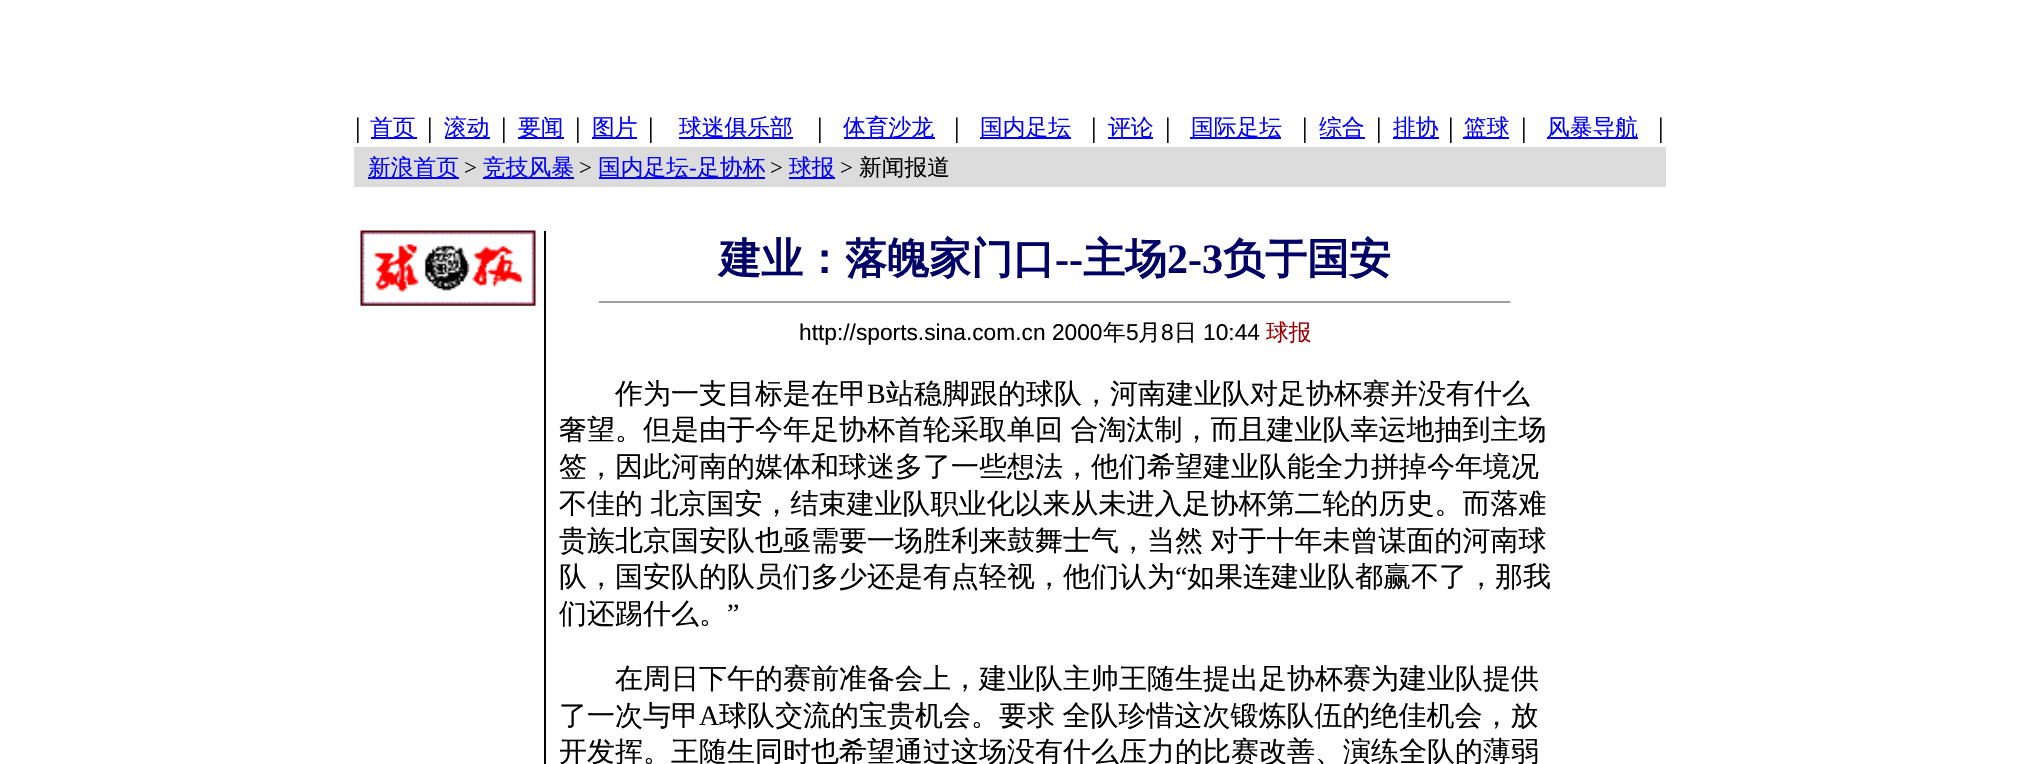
void draw(SkCanvas* canvas) {
	SkPaint fill;
	fill.setAntiAlias(true);
	auto makeFont = [&](const char* family, int weight, float size, bool italic = false) {
		SkFontStyle style(weight, SkFontStyle::kNormal_Width,
			italic ? SkFontStyle::kItalic_Slant : SkFontStyle::kUpright_Slant);
		SkFont result(fontMgr->matchFamilyStyle(family, style), size);
		result.setSubpixel(true);
		return result;
	};
	auto text = [&](const char* s, float x, float y, const SkFont& font) {
		canvas->drawString(s, x, y, font, fill);
	};
	auto spacedText = [&](const char* s, float x, float y, const SkFont& font, const SkPaint& ink, float letter, float word) {
		std::vector<SkGlyphID> glyphs(font.countText(s, strlen(s), SkTextEncoding::kUTF8));
		std::vector<float> xs(glyphs.size());
		font.textToGlyphs(s, strlen(s), SkTextEncoding::kUTF8, glyphs);
		font.getXPos(glyphs, xs, x);
		float extra = 0;
		for (size_t i = 0; i < glyphs.size(); i++) {
			xs[i] += extra;
			extra += letter + word * (glyphs[i] == font.unicharToGlyph(' '));
		}
		canvas->drawTextBlob(SkTextBlob::MakeFromPosHGlyphs(glyphs, xs, y, font), 0, 0, ink);
	};
	auto box = [&](float l, float t, float r, float b) {
		canvas->drawRect(SkRect::MakeLTRB(l, t, r, b), fill);
	};
	auto picture = [&](const char* path, float l, float t, float r, float b) {
		auto image = SkImages::DeferredFromEncodedData(SkData::MakeFromFileName(path));
		canvas->drawImageRect(image, SkRect::MakeLTRB(l, t, r, b), SkSamplingOptions());
	};
	canvas->clear(0xFFFFFFFF);
	fill.setColor(0xFF0000FF);
	box(371, 137, 417, 139);
	box(445, 137, 490, 139);
	box(518, 137, 564, 139);
	box(592, 137, 637, 139);
	box(679, 137, 793, 139);
	box(844, 137, 935, 139);
	box(980, 137, 1071, 139);
	box(1108, 137, 1153, 139);
	box(1190, 137, 1281, 139);
	box(1320, 137, 1365, 139);
	box(1393, 137, 1439, 139);
	box(1463, 137, 1509, 139);
	box(1547, 137, 1638, 139);
	fill.setColor(0xFFDCDCDC);
	box(354, 147, 1666, 187);
	fill.setColor(0xFF0000FF);
	box(368, 177, 459, 179);
	box(483, 177, 574, 179);
	box(599, 177, 765, 179);
	box(789, 177, 835, 179);
	picture("image0.png", 360, 230, 536, 306);
	fill.setColor(0xFF000000);
	box(544, 231, 546, 764);
	fill.setColor(0xFF9F9F9F);
	box(599, 301, 1512, 303);
	fill.setColor(0xFFEEEEEE);
	box(1510, 301, 1512, 303);
	auto font1 = makeFont("Liberation Serif", 400, 28);
	fill.setColor(0xFF000000);
	text("|", 355, 137, font1);
	auto font2 = makeFont("WenQuanYi Zen Hei", 500, 22.75f);
	fill.setColor(0xFF0000FF);
	text("首页", 370, 135, font2);
	fill.setColor(0xFF000000);
	text("|", 427, 137, font1);
	fill.setColor(0xFF0000FF);
	text("滚动", 444, 135, font2);
	fill.setColor(0xFF000000);
	text("|", 501, 137, font1);
	fill.setColor(0xFF0000FF);
	text("要闻", 518, 135, font2);
	fill.setColor(0xFF000000);
	text("|", 575, 137, font1);
	fill.setColor(0xFF0000FF);
	text("图片", 592, 135, font2);
	fill.setColor(0xFF000000);
	text("|", 648, 137, font1);
	fill.setColor(0xFF0000FF);
	text("球迷俱乐部", 679, 135, font2);
	fill.setColor(0xFF000000);
	text("|", 817, 137, font1);
	fill.setColor(0xFF0000FF);
	text("体育沙龙", 843, 135, font2);
	fill.setColor(0xFF000000);
	text("|", 954, 137, font1);
	fill.setColor(0xFF0000FF);
	text("国内足坛", 980, 135, font2);
	fill.setColor(0xFF000000);
	text("|", 1091, 137, font1);
	fill.setColor(0xFF0000FF);
	text("评论", 1108, 135, font2);
	fill.setColor(0xFF000000);
	text("|", 1165, 137, font1);
	fill.setColor(0xFF0000FF);
	text("国际足坛", 1191, 135, font2);
	fill.setColor(0xFF000000);
	text("|", 1302, 137, font1);
	fill.setColor(0xFF0000FF);
	text("综合", 1319, 135, font2);
	fill.setColor(0xFF000000);
	text("|", 1376, 137, font1);
	fill.setColor(0xFF0000FF);
	text("排协", 1393, 135, font2);
	fill.setColor(0xFF000000);
	text("|", 1448, 137, font1);
	fill.setColor(0xFF0000FF);
	text("篮球", 1464, 135, font2);
	fill.setColor(0xFF000000);
	text("|", 1521, 137, font1);
	fill.setColor(0xFF0000FF);
	text("风暴导航", 1547, 135, font2);
	fill.setColor(0xFF000000);
	text("|", 1658, 137, font1);
	fill.setColor(0xFF0000FF);
	text("新浪首页", 368, 175, font2);
	auto font3 = makeFont("Liberation Serif", 400, 22.75f);
	fill.setColor(0xFF000000);
	text(">", 464, 175, font3);
	fill.setColor(0xFF0000FF);
	text("竞技风暴", 483, 175, font2);
	fill.setColor(0xFF000000);
	text(">", 579, 175, font3);
	fill.setColor(0xFF0000FF);
	text("国内足坛", 598, 175, font2);
	text("-", 689, 175, font3);
	text("足协杯", 697, 175, font2);
	fill.setColor(0xFF000000);
	text(">", 770, 175, font3);
	fill.setColor(0xFF0000FF);
	text("球报", 789, 175, font2);
	fill.setColor(0xFF000000);
	text(">", 840, 175, font3);
	text("新闻报道", 859, 175, font2);
	auto font4 = makeFont("WenQuanYi Zen Hei", 700, 42);
	fill.setColor(0xFF000066);
	text("建业：落魄家门口", 719, 273, font4);
	auto font5 = makeFont("Liberation Serif", 700, 42);
	text("--", 1055, 273, font5);
	text("主场", 1083, 273, font4);
	text("2-3", 1167, 273, font5);
	text("负于国安", 1223, 273, font4);
	auto font6 = makeFont("Liberation Sans", 400, 22.75f);
	fill.setColor(0xFF000000);
	text("http://sports.sina.com.cn 2000", 799, 340, font6);
	text("年", 1103, 340, font2);
	text("5", 1126, 340, font6);
	text("月", 1138, 340, font2);
	text("8", 1161, 340, font6);
	text("日", 1174, 340, font2);
	text("10:44", 1203, 340, font6);
	fill.setColor(0xFF990000);
	text("球报", 1266, 340, font2);
	auto font7 = makeFont("WenQuanYi Zen Hei", 500, 28);
	fill.setColor(0xFF000000);
	text("作为一支目标是在甲", 615, 403, font7);
	text("B", 867, 403, font1);
	text("站稳脚跟的球队，河南建业队对足协杯赛并没有什么", 886, 403, font7);
	spacedText("奢望。但是由于今年足协杯首轮采取单回 合淘汰制，而且建业队幸运地抽到主场", 559, 439, font7, fill, 0, -1);
	text("签，因此河南的媒体和球迷多了一些想法，他们希望建业队能全力拼掉今年境况", 559, 476, font7);
	spacedText("不佳的 北京国安，结束建业队职业化以来从未进入足协杯第二轮的历史。而落难", 559, 513, font7, fill, 0, -1);
	spacedText("贵族北京国安队也亟需要一场胜利来鼓舞士气，当然 对于十年未曾谋面的河南球", 559, 550, font7, fill, 0, -1);
	text("队，国安队的队员们多少还是有点轻视，他们认为", 559, 586, font7);
	text("“", 1175, 586, font1);
	text("如果连建业队都赢不了，那我", 1187, 586, font7);
	text("们还踢什么。", 559, 623, font7);
	text("”", 727, 623, font1);
	text("在周日下午的赛前准备会上，建业队主帅王随生提出足协杯赛为建业队提供", 615, 688, font7);
	text("了一次与甲", 559, 725, font7);
	text("A", 699, 725, font1);
	spacedText("球队交流的宝贵机会。要求 全队珍惜这次锻炼队伍的绝佳机会，放", 719, 725, font7, fill, 0, -1);
	text("开发挥。王随生同时也希望通过这场没有什么压力的比赛改善、演练全队的薄弱", 559, 761, font7);
}
